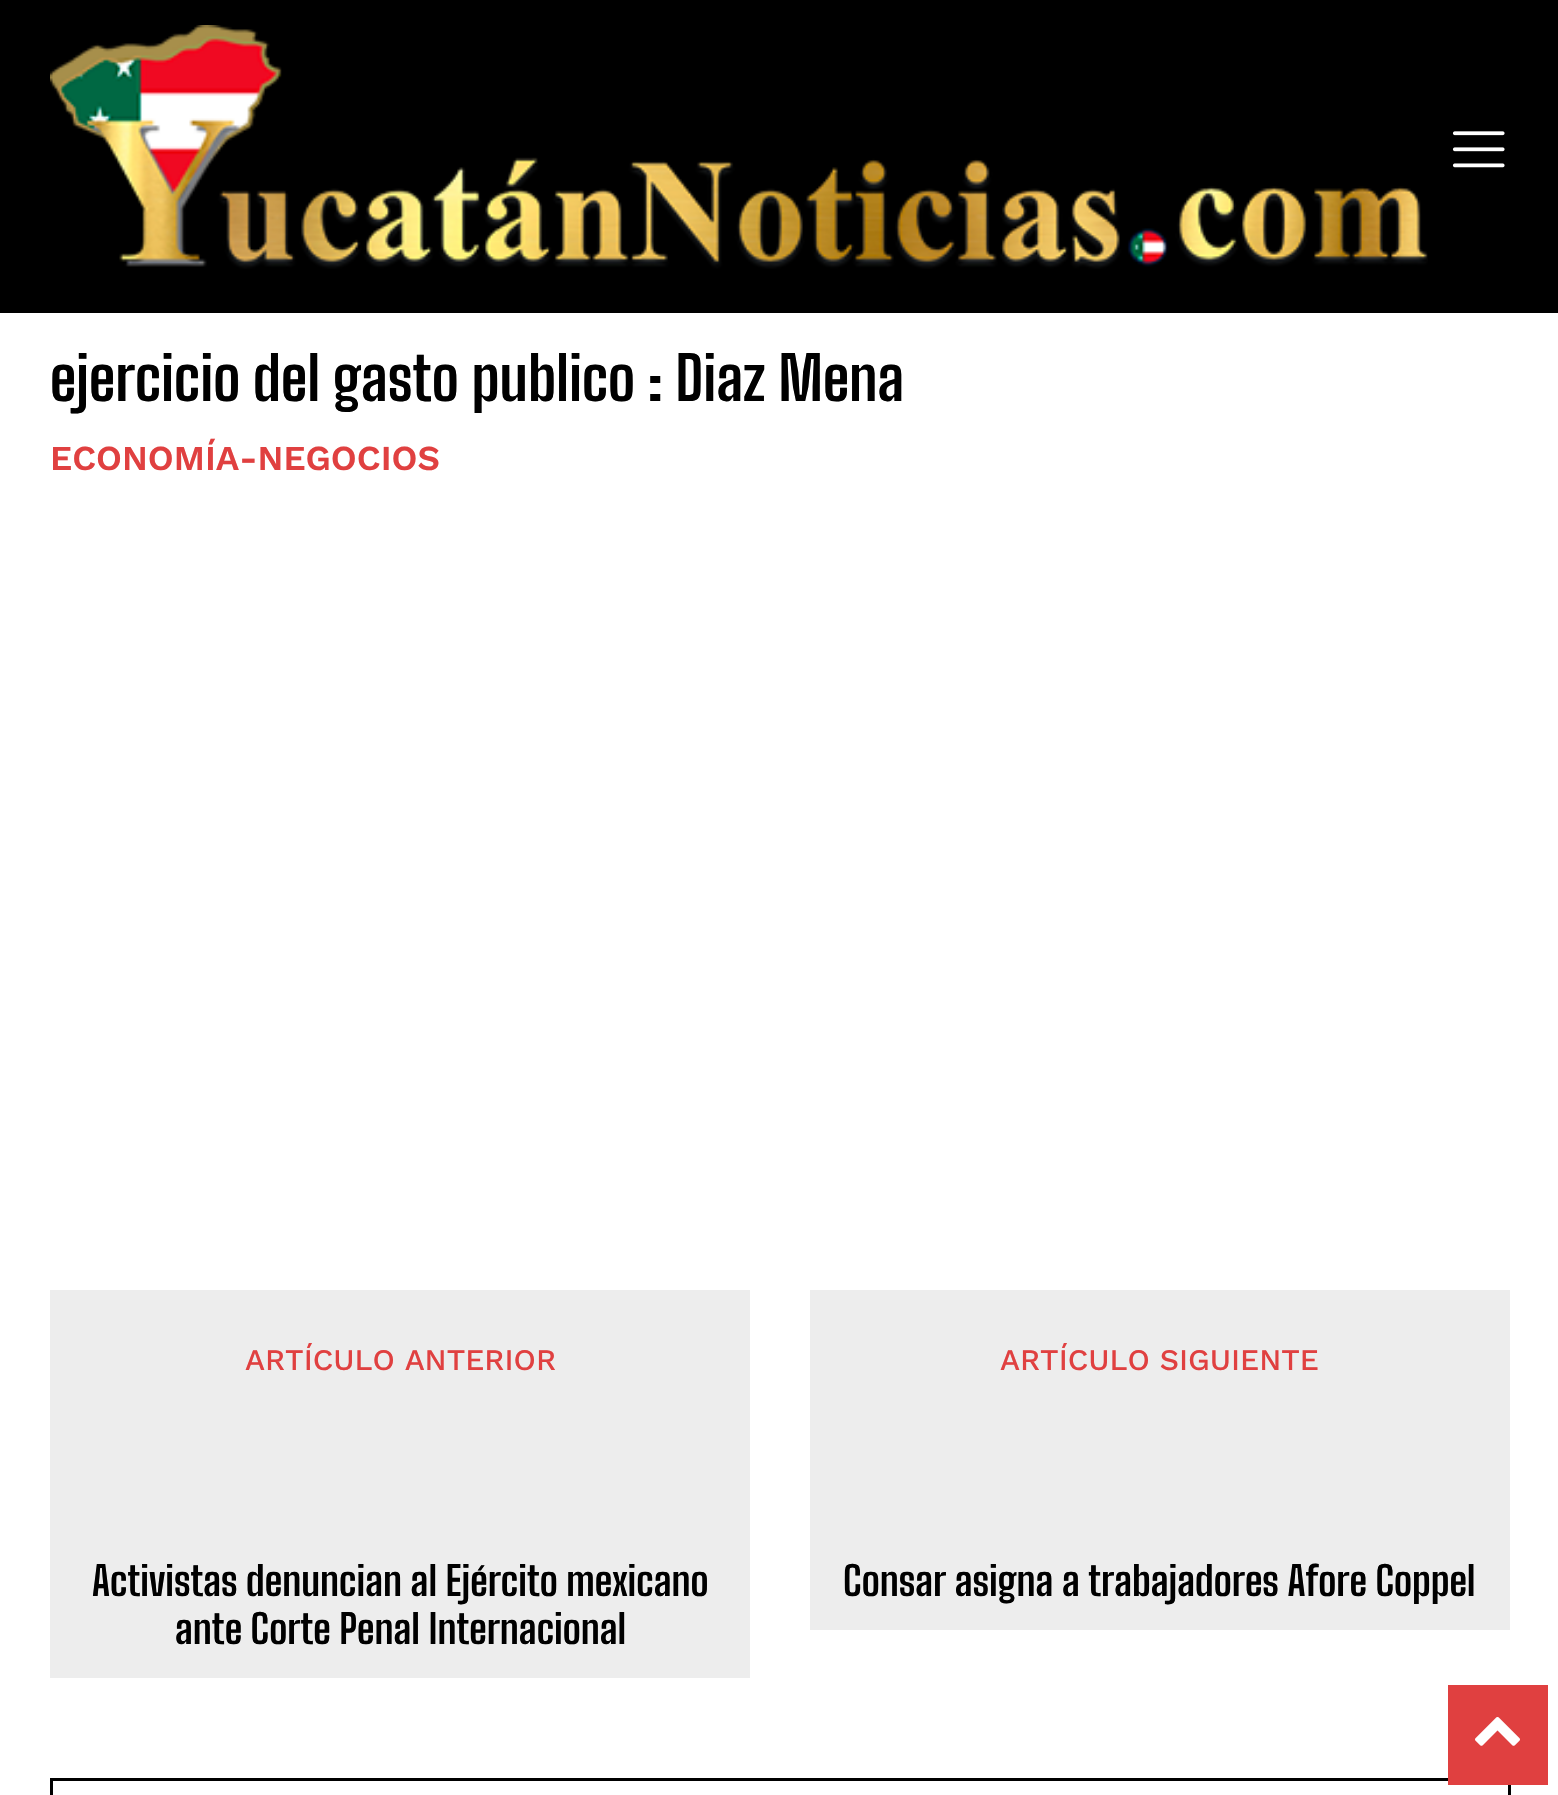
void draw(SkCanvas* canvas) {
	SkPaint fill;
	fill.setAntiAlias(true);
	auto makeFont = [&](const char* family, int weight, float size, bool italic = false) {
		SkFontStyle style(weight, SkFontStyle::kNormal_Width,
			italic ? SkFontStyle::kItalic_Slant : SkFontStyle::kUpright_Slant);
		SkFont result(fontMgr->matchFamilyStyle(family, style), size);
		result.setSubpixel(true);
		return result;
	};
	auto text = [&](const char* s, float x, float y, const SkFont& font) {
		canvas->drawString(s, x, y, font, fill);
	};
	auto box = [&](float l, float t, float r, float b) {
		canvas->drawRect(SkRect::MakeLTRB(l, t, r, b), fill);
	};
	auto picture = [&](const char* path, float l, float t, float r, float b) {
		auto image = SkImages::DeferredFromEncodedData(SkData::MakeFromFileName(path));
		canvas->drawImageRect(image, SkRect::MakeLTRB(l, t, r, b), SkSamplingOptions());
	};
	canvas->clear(0xFFFFFFFF);
	fill.setColor(0xFF000000);
	box(0, 0, 1558, 313);
	picture("image0.png", 50, 25, 1428, 269);
	picture("image1.png", 1452, 131, 1505, 168);
	fill.setColor(0xFFEDEDED);
	box(50, 1290, 750, 1678);
	box(810, 1290, 1510, 1630);
	fill.setColor(0xFF000000);
	box(50, 1778, 1448, 1781);
	box(1508, 1778, 1511, 1795);
	box(50, 1778, 53, 1795);
	fill.setColor(0xFFE04040);
	box(1448, 1685, 1548, 1785);
	picture("image2.png", 1475, 1717, 1520, 1746);
	auto font1 = makeFont("Big Shoulders Text", 700, 60);
	fill.setColor(0xFF000000);
	text("ejercicio del gasto publico : Diaz Mena", 50, 401, font1);
	auto font2 = makeFont("Work Sans", 600, 35);
	fill.setColor(0xFFE04040);
	text("ECONOMÍA-NEGOCIOS", 50, 470, font2);
	auto font3 = makeFont("Work Sans", 500, 30);
	text("ARTÍCULO ANTERIOR", 245, 1370, font3);
	auto font4 = makeFont("Big Shoulders Text", 700, 40);
	fill.setColor(0xFF000000);
	text("Activistas denuncian al Ejército mexicano", 92, 1596, font4);
	text("ante Corte Penal Internacional", 175, 1644, font4);
	fill.setColor(0xFFE04040);
	text("ARTÍCULO SIGUIENTE", 1000, 1370, font3);
	fill.setColor(0xFF000000);
	text("Consar asigna a trabajadores Afore Coppel", 843, 1596, font4);
}
